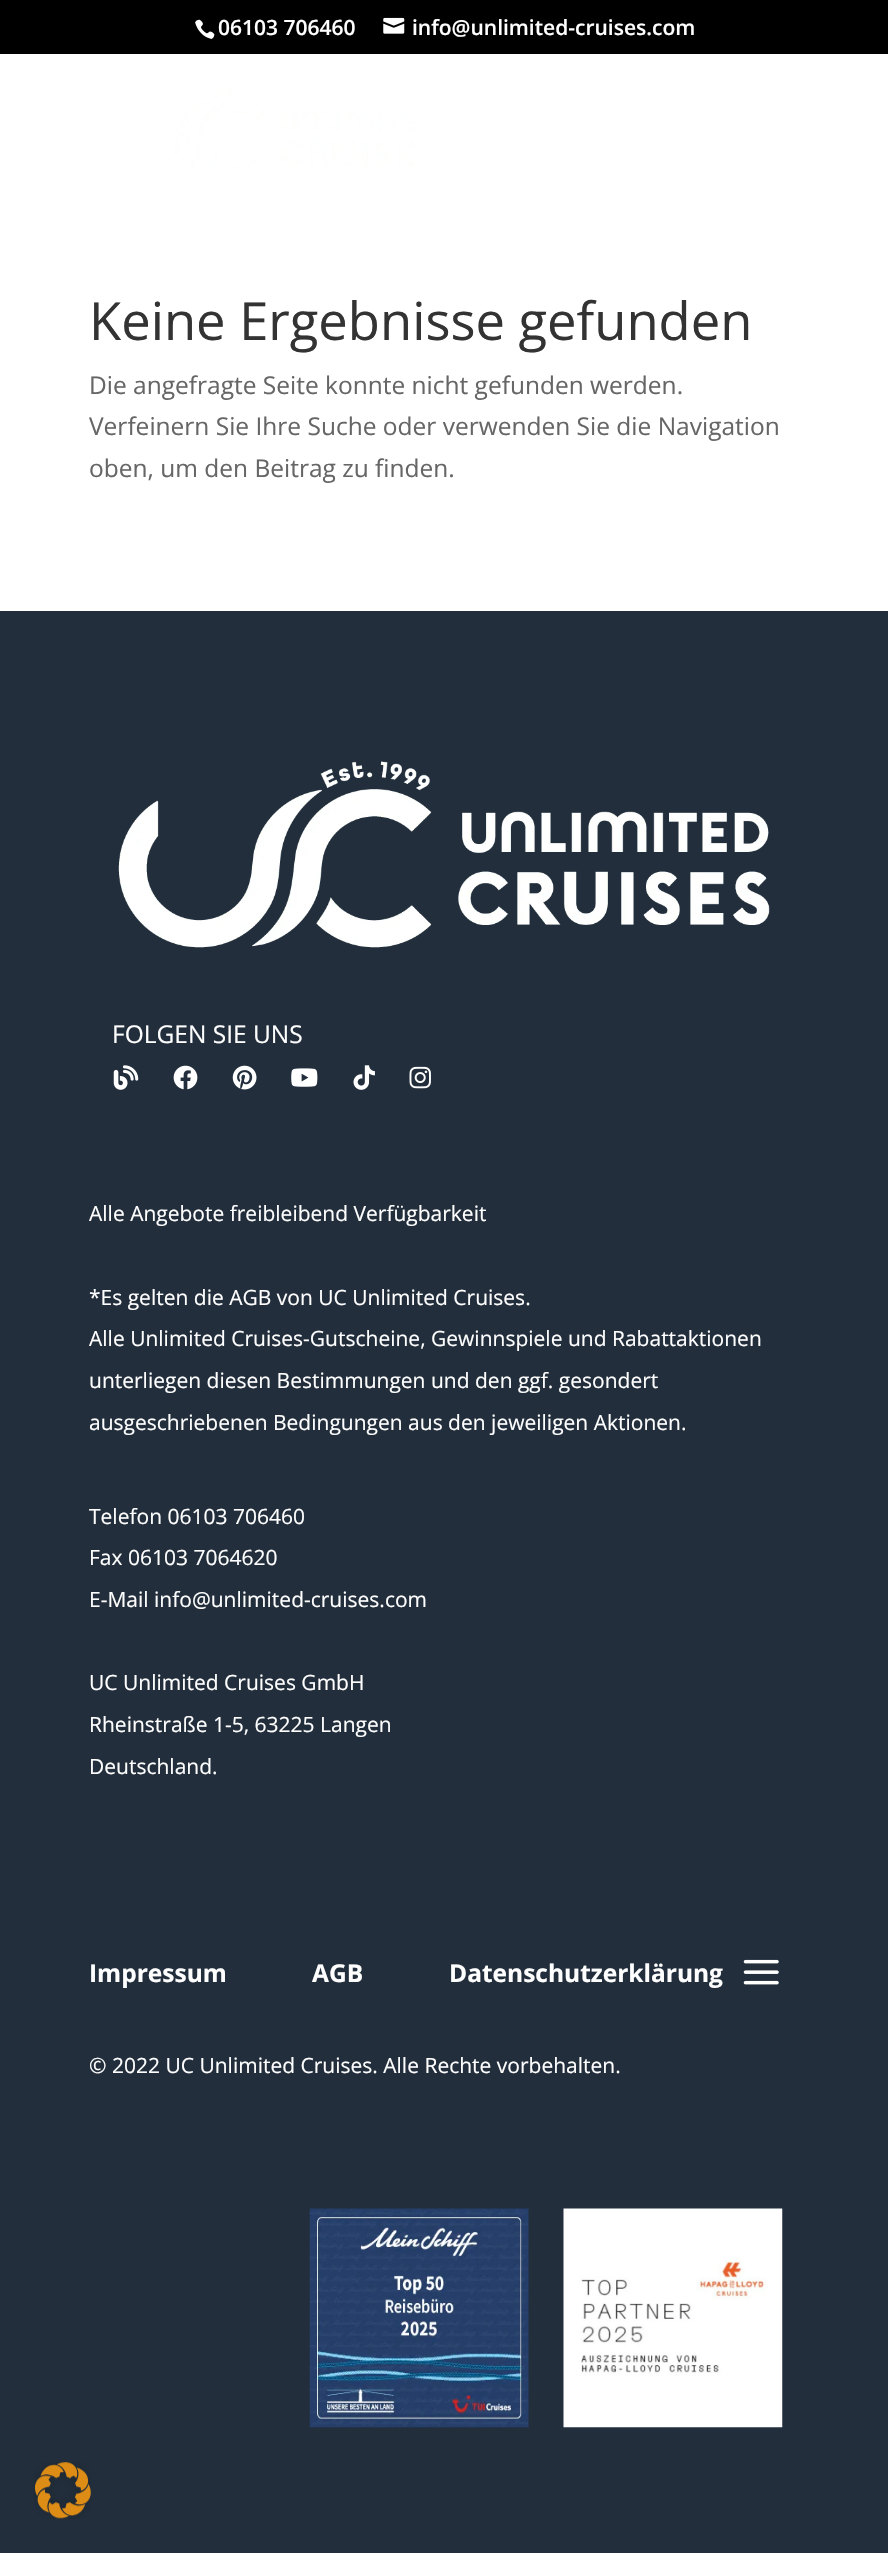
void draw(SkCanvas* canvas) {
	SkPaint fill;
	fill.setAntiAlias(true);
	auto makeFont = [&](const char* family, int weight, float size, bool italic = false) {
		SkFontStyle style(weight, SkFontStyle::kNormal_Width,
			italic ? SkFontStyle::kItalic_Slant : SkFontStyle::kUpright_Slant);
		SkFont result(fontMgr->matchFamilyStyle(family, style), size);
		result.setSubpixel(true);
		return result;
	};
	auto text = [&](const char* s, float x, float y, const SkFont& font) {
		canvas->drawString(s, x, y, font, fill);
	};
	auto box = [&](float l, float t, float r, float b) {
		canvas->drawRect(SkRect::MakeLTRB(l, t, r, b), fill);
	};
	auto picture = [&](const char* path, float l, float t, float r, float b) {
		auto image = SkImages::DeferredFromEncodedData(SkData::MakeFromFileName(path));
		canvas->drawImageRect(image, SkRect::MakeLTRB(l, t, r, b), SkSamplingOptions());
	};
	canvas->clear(0xFFFFFFFF);
	fill.setColor(0xFF000000);
	box(0, 0, 888, 54);
	picture("image0.png", 195, 19, 215, 39);
	picture("image1.png", 383, 17, 405, 34);
	picture("image2.png", 164, 86, 421, 167);
	fill.setColor(0xFF222E3C);
	box(0, 611, 888, 2553);
	picture("image3.png", 118, 761, 770, 948);
	picture("image4.png", 113, 1065, 139, 1090);
	picture("image5.png", 173, 1065, 198, 1090);
	picture("image6.png", 232, 1065, 257, 1090);
	picture("image7.png", 291, 1068, 318, 1087);
	picture("image8.png", 353, 1065, 375, 1090);
	picture("image9.png", 409, 1066, 431, 1089);
	picture("image10.png", 743, 1959, 779, 1985);
	picture("image11.png", 309, 2208, 529, 2428);
	picture("image12.png", 563, 2208, 783, 2428);
	picture("image13.png", 34, 2462, 91, 2519);
	auto font1 = makeFont("Open Sans", 600, 21);
	fill.setColor(0xFFFFFFFF);
	text("06103 706460", 218, 35, font1);
	text("info@unlimited-cruises.com", 412, 35, font1);
	auto font2 = makeFont("Open Sans", 400, 52.5f);
	fill.setColor(0xFF333333);
	text("Keine Ergebnisse gefunden", 89, 340, font2);
	auto font3 = makeFont("Open Sans", 400, 24.5f);
	fill.setColor(0xFF666666);
	text("Die angefragte Seite konnte nicht gefunden werden.", 89, 394, font3);
	text("Verfeinern Sie Ihre Suche oder verwenden Sie die Navigation", 89, 435, font3);
	text("oben, um den Beitrag zu finden.", 89, 477, font3);
	fill.setColor(0xFFFFFFFF);
	text("FOLGEN SIE UNS", 112, 1043, font3);
	auto font4 = makeFont("Open Sans", 400, 21);
	text("Alle Angebote freibleibend Verfügbarkeit", 89, 1221, font4);
	text("*Es gelten die AGB von UC Unlimited Cruises.", 89, 1305, font4);
	text("Alle Unlimited Cruises-Gutscheine, Gewinnspiele und Rabattaktionen", 89, 1346, font4);
	text("unterliegen diesen Bestimmungen und den ggf. gesondert", 89, 1388, font4);
	text("ausgeschriebenen Bedingungen aus den jeweiligen Aktionen.", 89, 1430, font4);
	text("Telefon 06103 706460", 89, 1524, font4);
	text("Fax 06103 7064620", 89, 1565, font4);
	text("E-Mail info@unlimited-cruises.com", 89, 1607, font4);
	text("UC Unlimited Cruises GmbH", 89, 1690, font4);
	text("Rheinstraße 1-5, 63225 Langen", 89, 1732, font4);
	text("Deutschland.", 89, 1774, font4);
	auto font5 = makeFont("Open Sans", 700, 24.5f);
	text("Impressum", 89, 1982, font5);
	text("AGB", 312, 1982, font5);
	text("Datenschutzerklärung", 449, 1982, font5);
	text("© 2022 UC Unlimited Cruises. Alle Rechte vorbehalten.", 89, 2073, font4);
}
